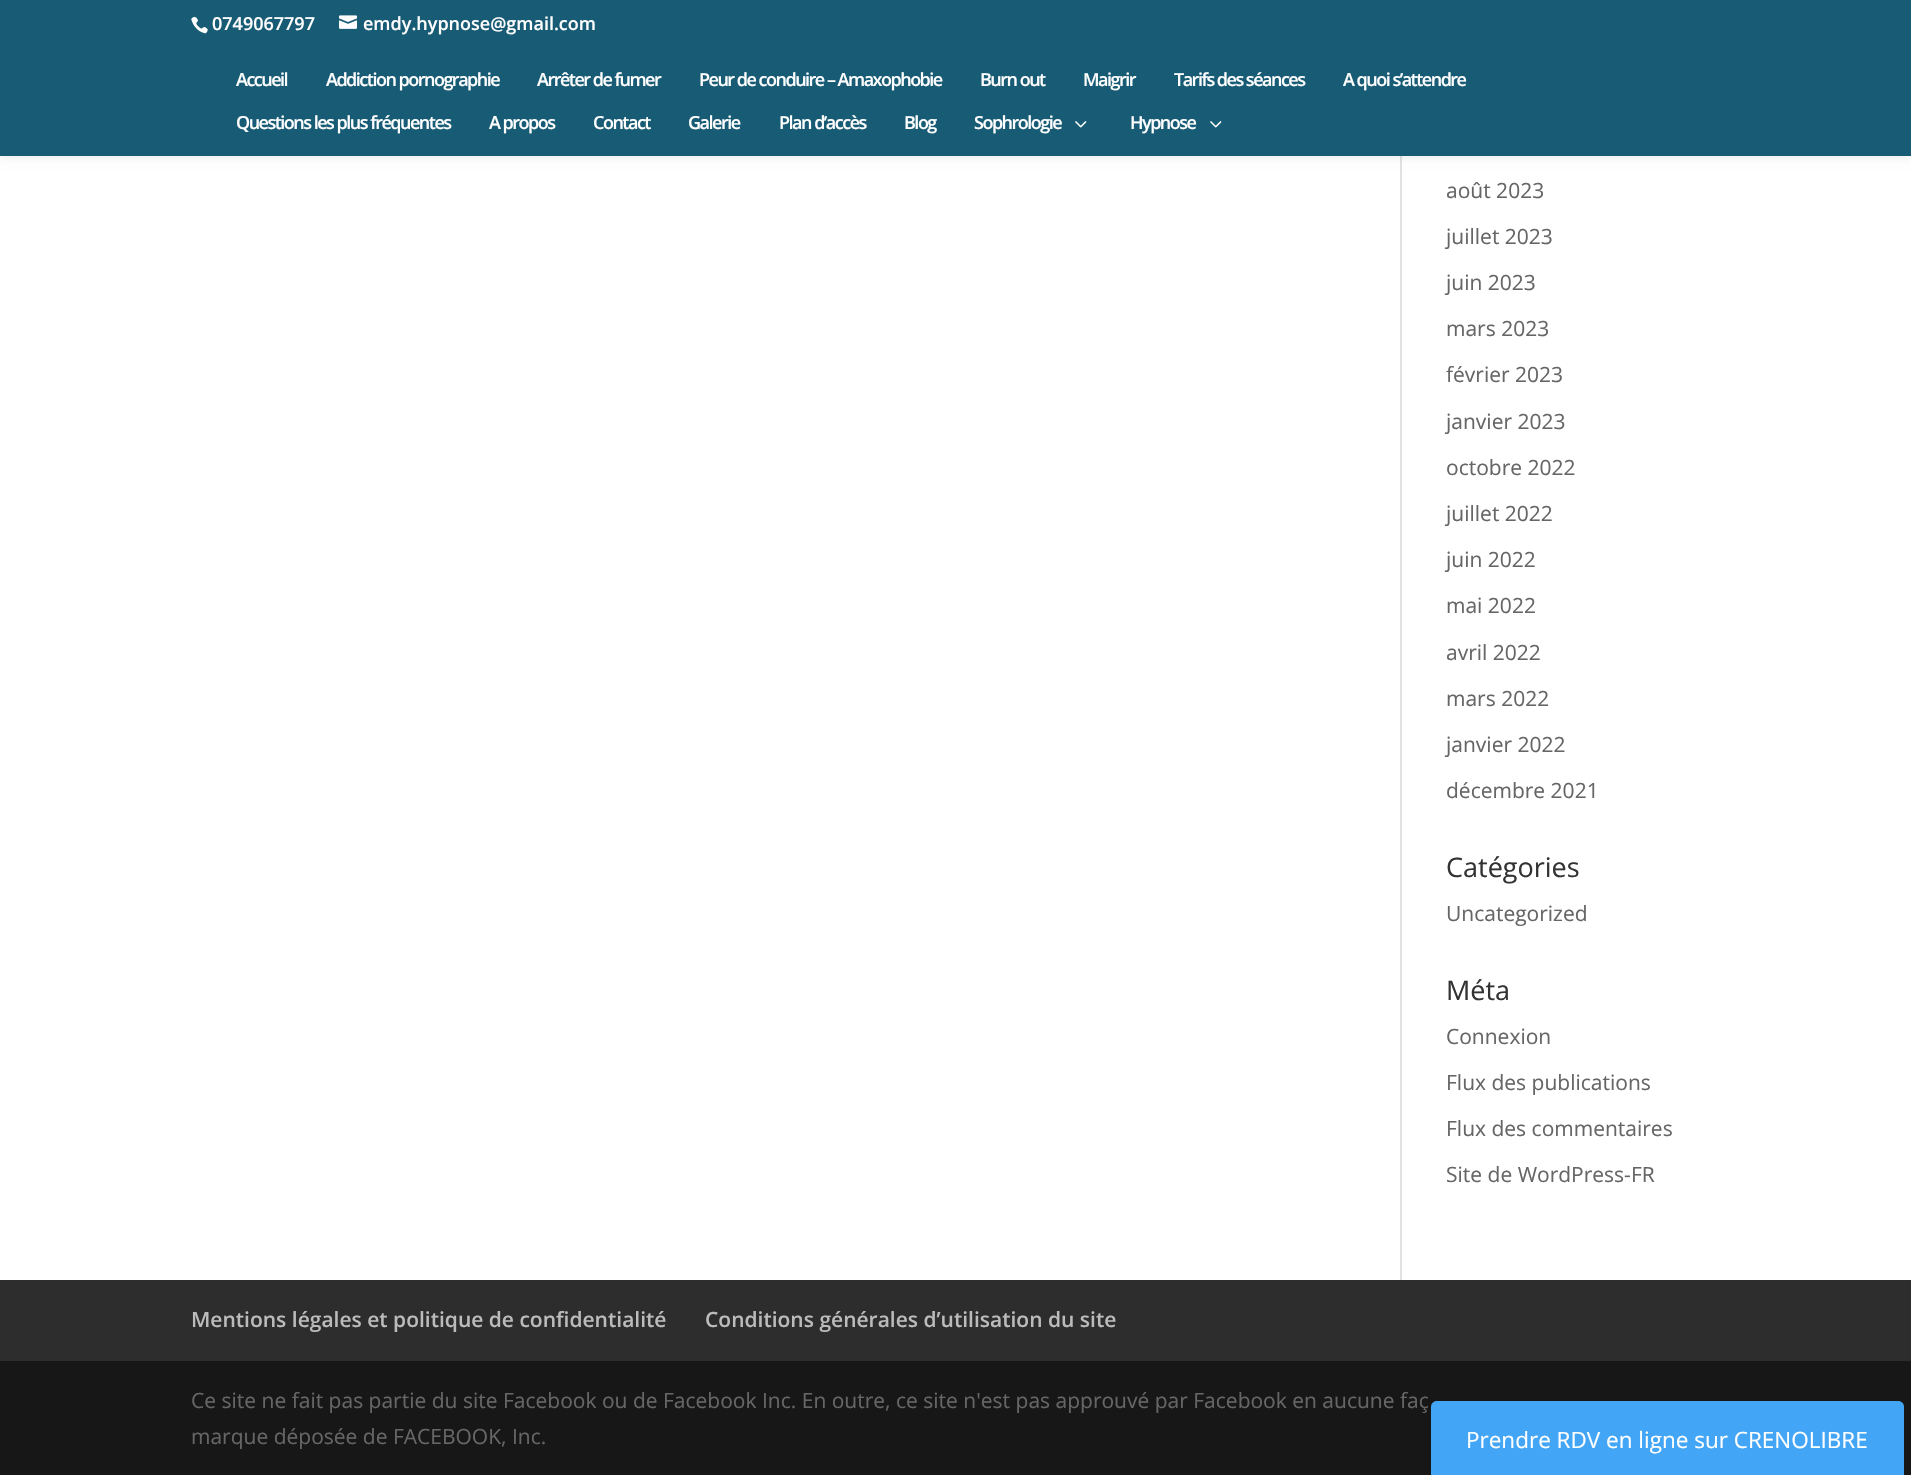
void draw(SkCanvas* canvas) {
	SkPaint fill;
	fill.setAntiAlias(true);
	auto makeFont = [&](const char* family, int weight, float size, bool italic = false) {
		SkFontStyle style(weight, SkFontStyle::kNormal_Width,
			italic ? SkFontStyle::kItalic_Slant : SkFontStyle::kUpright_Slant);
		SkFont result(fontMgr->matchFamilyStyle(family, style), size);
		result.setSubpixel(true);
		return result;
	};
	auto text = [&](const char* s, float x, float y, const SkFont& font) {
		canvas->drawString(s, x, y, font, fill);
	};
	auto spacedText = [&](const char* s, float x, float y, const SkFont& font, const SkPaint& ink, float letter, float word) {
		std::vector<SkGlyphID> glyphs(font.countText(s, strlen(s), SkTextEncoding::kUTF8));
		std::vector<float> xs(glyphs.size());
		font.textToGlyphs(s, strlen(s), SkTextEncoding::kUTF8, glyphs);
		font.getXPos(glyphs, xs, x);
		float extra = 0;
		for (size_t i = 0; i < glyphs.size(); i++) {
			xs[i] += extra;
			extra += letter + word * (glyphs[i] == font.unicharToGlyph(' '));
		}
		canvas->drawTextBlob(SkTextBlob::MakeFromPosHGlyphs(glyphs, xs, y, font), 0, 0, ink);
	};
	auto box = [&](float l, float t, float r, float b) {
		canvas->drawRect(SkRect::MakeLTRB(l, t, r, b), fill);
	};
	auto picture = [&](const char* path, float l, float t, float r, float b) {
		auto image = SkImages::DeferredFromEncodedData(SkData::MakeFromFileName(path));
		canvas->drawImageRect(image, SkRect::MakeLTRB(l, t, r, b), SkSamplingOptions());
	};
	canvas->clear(0xFFFFFFFF);
	fill.setColor(0xFFE2E2E2);
	box(1400, 156, 1402, 1280);
	fill.setColor(0x1A000000);
	fill.setMaskFilter(SkMaskFilter::MakeBlur(kNormal_SkBlurStyle, 5));
	canvas->drawRect(SkRect::MakeLTRB(0, 47, 1911, 156), fill);
	fill.setMaskFilter(nullptr);
	fill.setColor(0xFF185B75);
	box(0, 0, 1911, 156);
	picture("image0.png", 191, 16, 208, 34);
	picture("image1.png", 339, 15, 357, 29);
	picture("image2.png", 1075, 121, 1087, 128);
	picture("image2.png", 1210, 121, 1222, 128);
	fill.setColor(0xFF2D2D2D);
	box(0, 1280, 1911, 1361);
	fill.setColor(0xFF171717);
	box(0, 1361, 1911, 1475);
	fill.setColor(0xFF42A5F5);
	canvas->drawPath(SkPathBuilder().moveTo(1437, 1401).lineTo(1898, 1401).cubicTo(1901.5f, 1401, 1904, 1403.5f, 1904, 1407).lineTo(1904, 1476).lineTo(1431, 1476).lineTo(1431, 1407).cubicTo(1431, 1403.5f, 1433.5f, 1401, 1437, 1401).close().detach(), fill);
	auto font1 = makeFont("Open Sans", 600, 18);
	fill.setColor(0xFFFFFFFF);
	text("0749067797", 212, 30, font1);
	text("emdy.hypnose@gmail.com", 363, 30, font1);
	spacedText("Accueil", 236, 86, font1, fill, -1.5f, 0);
	spacedText("Addiction pornographie", 326, 86, font1, fill, -1.5f, 0);
	spacedText("Arrêter de fumer", 537, 86, font1, fill, -1.5f, 0);
	spacedText("Peur de conduire – Amaxophobie", 699, 86, font1, fill, -1.5f, 0);
	spacedText("Burn out", 980, 86, font1, fill, -1.5f, 0);
	spacedText("Maigrir", 1083, 86, font1, fill, -1.5f, 0);
	spacedText("Tarifs des séances", 1174, 86, font1, fill, -1.5f, 0);
	spacedText("A quoi s’attendre", 1343, 86, font1, fill, -1.5f, 0);
	spacedText("Questions les plus fréquentes", 236, 129, font1, fill, -1.5f, 0);
	spacedText("A propos", 489, 129, font1, fill, -1.5f, 0);
	spacedText("Contact", 593, 129, font1, fill, -1.5f, 0);
	spacedText("Galerie", 688, 129, font1, fill, -1.5f, 0);
	spacedText("Plan d’accès", 779, 129, font1, fill, -1.5f, 0);
	spacedText("Blog", 904, 129, font1, fill, -1.5f, 0);
	spacedText("Sophrologie", 974, 129, font1, fill, -1.5f, 0);
	spacedText("Hypnose", 1130, 129, font1, fill, -1.5f, 0);
	auto font2 = makeFont("Open Sans", 400, 21);
	fill.setColor(0xFF666666);
	text("août 2023", 1446, 198, font2);
	text("juillet 2023", 1446, 244, font2);
	text("juin 2023", 1446, 290, font2);
	text("mars 2023", 1446, 336, font2);
	text("février 2023", 1446, 382, font2);
	text("janvier 2023", 1446, 429, font2);
	text("octobre 2022", 1446, 475, font2);
	text("juillet 2022", 1446, 521, font2);
	text("juin 2022", 1446, 567, font2);
	text("mai 2022", 1446, 613, font2);
	text("avril 2022", 1446, 660, font2);
	text("mars 2022", 1446, 706, font2);
	text("janvier 2022", 1446, 752, font2);
	text("décembre 2021", 1446, 798, font2);
	auto font3 = makeFont("Open Sans", 400, 27);
	fill.setColor(0xFF333333);
	text("Catégories", 1446, 877, font3);
	fill.setColor(0xFF666666);
	text("Uncategorized", 1446, 921, font2);
	fill.setColor(0xFF333333);
	text("Méta", 1446, 1000, font3);
	fill.setColor(0xFF666666);
	text("Connexion", 1446, 1044, font2);
	text("Flux des publications", 1446, 1090, font2);
	text("Flux des commentaires", 1446, 1136, font2);
	text("Site de WordPress-FR", 1446, 1182, font2);
	auto font4 = makeFont("Open Sans", 600, 21);
	fill.setColor(0xFFBBBBBB);
	text("Mentions légales et politique de confidentialité", 191, 1327, font4);
	text("Conditions générales d’utilisation du site", 705, 1327, font4);
	fill.setColor(0xFF666666);
	text("Ce site ne fait pas partie du site Facebook ou de Facebook Inc. En outre, ce site n'est pas approuvé par Facebook en aucune faç", 191, 1408, font2);
	text("marque déposée de FACEBOOK, Inc.", 191, 1444, font2);
	auto font5 = makeFont("Open Sans", 400, 22.5f);
	fill.setColor(0xFFFFFFFF);
	text("Prendre RDV en ligne sur CRENOLIBRE", 1466, 1448, font5);
}
